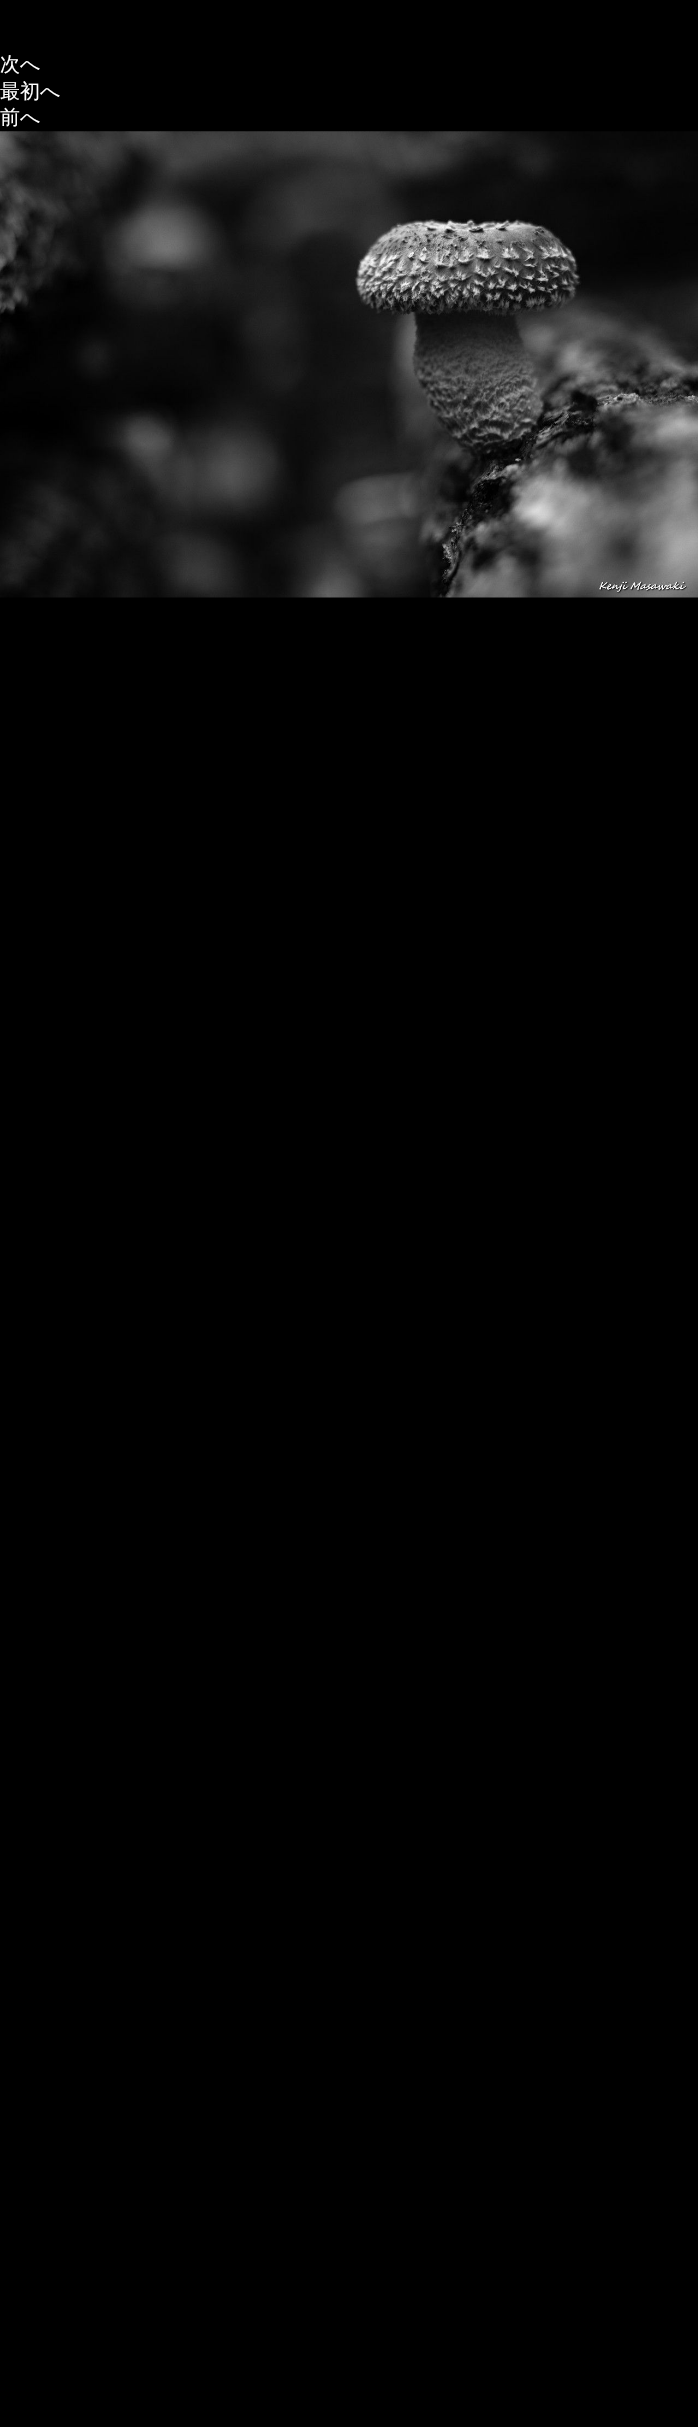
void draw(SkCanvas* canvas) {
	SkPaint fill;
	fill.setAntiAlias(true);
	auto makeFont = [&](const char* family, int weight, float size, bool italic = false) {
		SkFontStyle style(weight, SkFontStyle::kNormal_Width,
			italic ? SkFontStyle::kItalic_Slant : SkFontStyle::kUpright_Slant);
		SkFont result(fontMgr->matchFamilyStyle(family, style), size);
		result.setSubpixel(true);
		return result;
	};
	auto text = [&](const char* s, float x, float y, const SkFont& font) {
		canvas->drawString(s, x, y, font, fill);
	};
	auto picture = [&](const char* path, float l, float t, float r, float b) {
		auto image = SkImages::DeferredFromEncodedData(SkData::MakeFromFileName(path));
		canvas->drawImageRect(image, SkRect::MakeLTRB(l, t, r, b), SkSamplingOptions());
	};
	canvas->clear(0xFF000000);
	picture("image0.png", 0, 131, 698, 598);
	auto font1 = makeFont("WenQuanYi Zen Hei", 500, 20);
	fill.setColor(0xFFFFFFFF);
	text("次へ", 0, 71, font1);
	text("最初へ", 0, 98, font1);
	text("前へ", 0, 124, font1);
}
